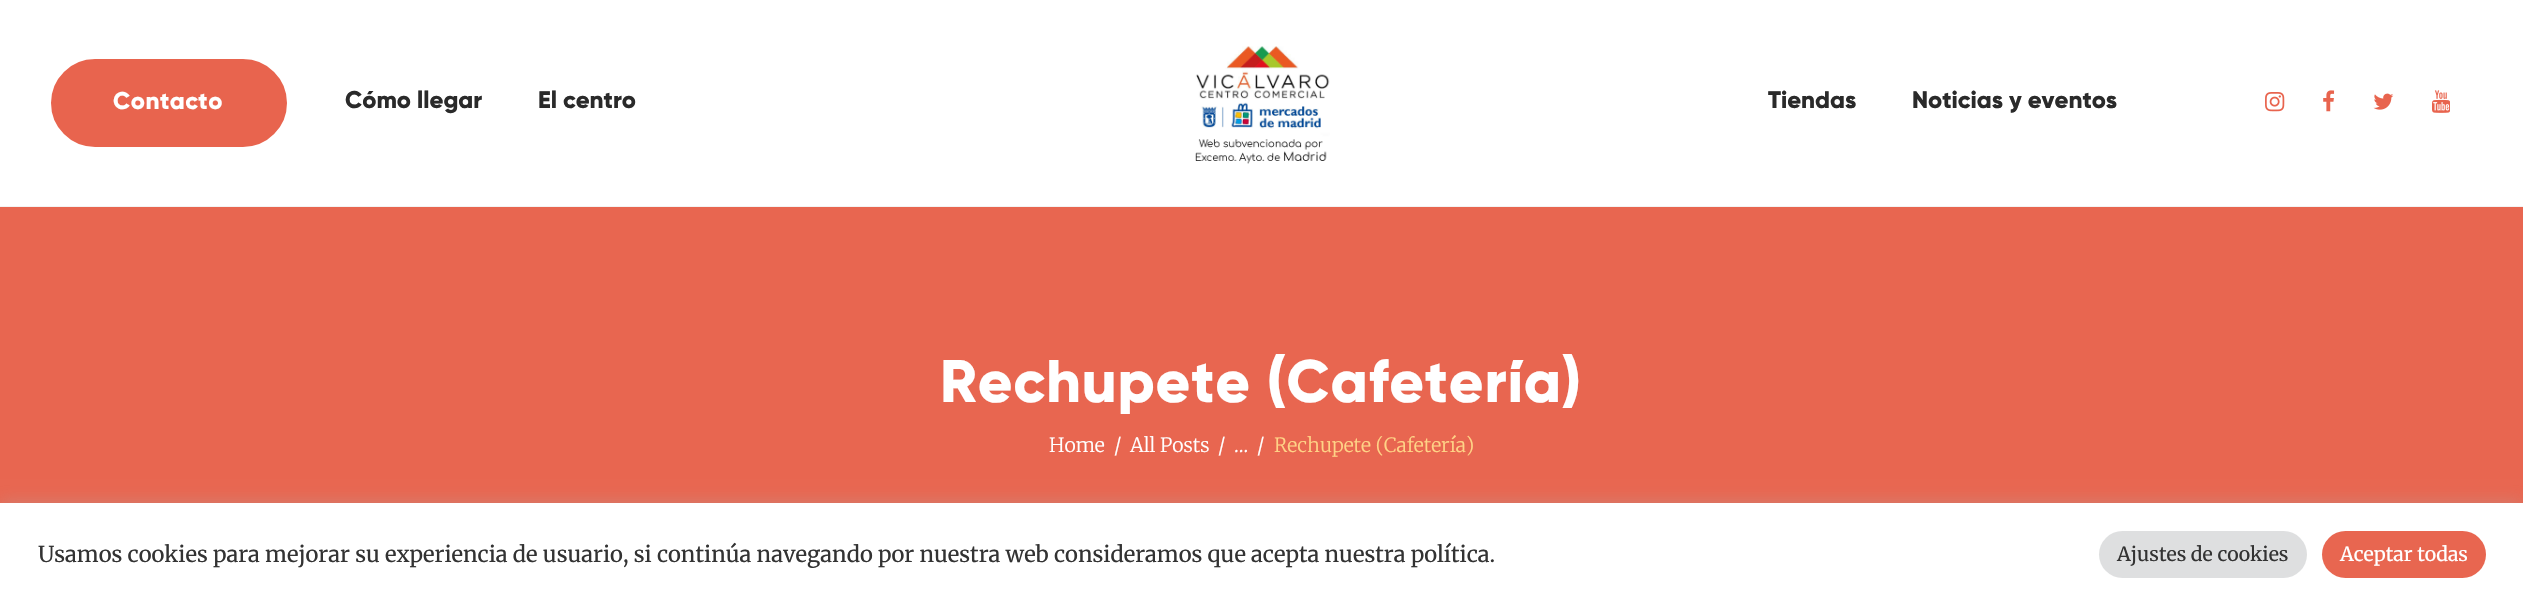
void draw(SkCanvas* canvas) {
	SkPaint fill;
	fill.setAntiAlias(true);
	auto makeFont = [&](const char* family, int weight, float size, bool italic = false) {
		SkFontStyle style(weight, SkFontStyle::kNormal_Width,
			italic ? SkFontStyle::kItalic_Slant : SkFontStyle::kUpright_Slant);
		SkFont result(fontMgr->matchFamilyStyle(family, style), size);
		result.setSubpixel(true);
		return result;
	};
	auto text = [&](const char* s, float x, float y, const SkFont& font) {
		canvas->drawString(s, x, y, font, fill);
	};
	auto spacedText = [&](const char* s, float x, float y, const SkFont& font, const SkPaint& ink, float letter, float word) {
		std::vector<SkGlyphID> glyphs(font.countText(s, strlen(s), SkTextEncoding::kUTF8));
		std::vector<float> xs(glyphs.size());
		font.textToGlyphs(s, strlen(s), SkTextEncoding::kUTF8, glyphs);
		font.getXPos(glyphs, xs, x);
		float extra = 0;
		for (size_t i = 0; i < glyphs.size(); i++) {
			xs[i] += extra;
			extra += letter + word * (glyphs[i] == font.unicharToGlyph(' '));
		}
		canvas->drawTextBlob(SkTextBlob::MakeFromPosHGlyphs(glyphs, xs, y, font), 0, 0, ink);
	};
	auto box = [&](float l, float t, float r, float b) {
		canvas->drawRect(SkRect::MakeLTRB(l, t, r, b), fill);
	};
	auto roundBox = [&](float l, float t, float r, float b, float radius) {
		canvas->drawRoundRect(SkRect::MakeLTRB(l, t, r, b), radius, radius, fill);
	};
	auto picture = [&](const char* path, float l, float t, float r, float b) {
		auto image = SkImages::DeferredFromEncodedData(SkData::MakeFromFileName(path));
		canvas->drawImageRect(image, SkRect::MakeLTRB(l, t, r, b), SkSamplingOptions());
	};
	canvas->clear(0xFFFFFFFF);
	fill.setColor(0xFFF3F3F3);
	box(0, 206, 2523, 207);
	fill.setColor(0xFFE8644E);
	canvas->drawRoundRect(SkRect::MakeLTRB(52.5f, 60.5f, 285.5f, 145.5f), 42.5f, 42.5f, fill);
	fill.setStyle(SkPaint::kStroke_Style);
	fill.setStrokeWidth(3);
	canvas->drawRoundRect(SkRect::MakeLTRB(52.5f, 60.5f, 285.5f, 145.5f), 42.5f, 42.5f, fill);
	picture("image0.png", 1195, 46, 1330, 164);
	picture("image1.png", 2265, 92, 2285, 112);
	picture("image2.png", 2323, 90, 2335, 112);
	picture("image3.png", 2373, 93, 2394, 110);
	picture("image4.png", 2432, 90, 2450, 113);
	fill.setStyle(SkPaint::kFill_Style);
	fill.setColor(0xFFE86650);
	box(0, 207, 2523, 503);
	fill.setColor(0x4DACABAB);
	fill.setMaskFilter(SkMaskFilter::MakeBlur(kNormal_SkBlurStyle, 7.5f));
	canvas->drawRect(SkRect::MakeLTRB(0, 501, 2523, 605), fill);
	fill.setMaskFilter(nullptr);
	fill.setColor(0xFFFFFFFF);
	box(0, 503, 2523, 605);
	fill.setColor(0xFFDEDFE0);
	roundBox(2099, 531, 2307, 578, 23.5f);
	fill.setColor(0xFFE86650);
	roundBox(2322, 531, 2486, 578, 23.5f);
	auto font1 = makeFont("Gilroy", 800, 24);
	fill.setColor(0xFFFFFFFF);
	spacedText("Contacto", 113, 109, font1, fill, 0.5f, 0);
	fill.setColor(0xFF2A2A2A);
	text("Cómo llegar", 345, 108, font1);
	text("El centro", 538, 108, font1);
	text("Tiendas", 1768, 108, font1);
	text("Noticias y eventos", 1912, 108, font1);
	auto font2 = makeFont("Gilroy", 800, 60);
	fill.setColor(0xFFFFFFFF);
	spacedText("Rechupete (Cafetería)", 940, 402, font2, fill, 0.8f, 0);
	auto font3 = makeFont("Merriweather", 300, 19.5f);
	text("Home", 1049, 452, font3);
	text("/", 1114, 452, font3);
	text("All Posts", 1130, 452, font3);
	text("/", 1218, 452, font3);
	text("...", 1234, 452, font3);
	text("/", 1257, 452, font3);
	fill.setColor(0xFFFFD386);
	text("Rechupete (Cafetería)", 1274, 452, font3);
	auto font4 = makeFont("Merriweather", 400, 22);
	fill.setColor(0xFF333333);
	text("Usamos cookies para mejorar su experiencia de usuario, si continúa navegando por nuestra web consideramos que acepta nuestra política.", 38, 562, font4);
	auto font5 = makeFont("Merriweather", 400, 19.5f);
	text("Ajustes de cookies", 2117, 561, font5);
	fill.setColor(0xFFFFFFFF);
	text("Aceptar todas", 2340, 561, font5);
}
